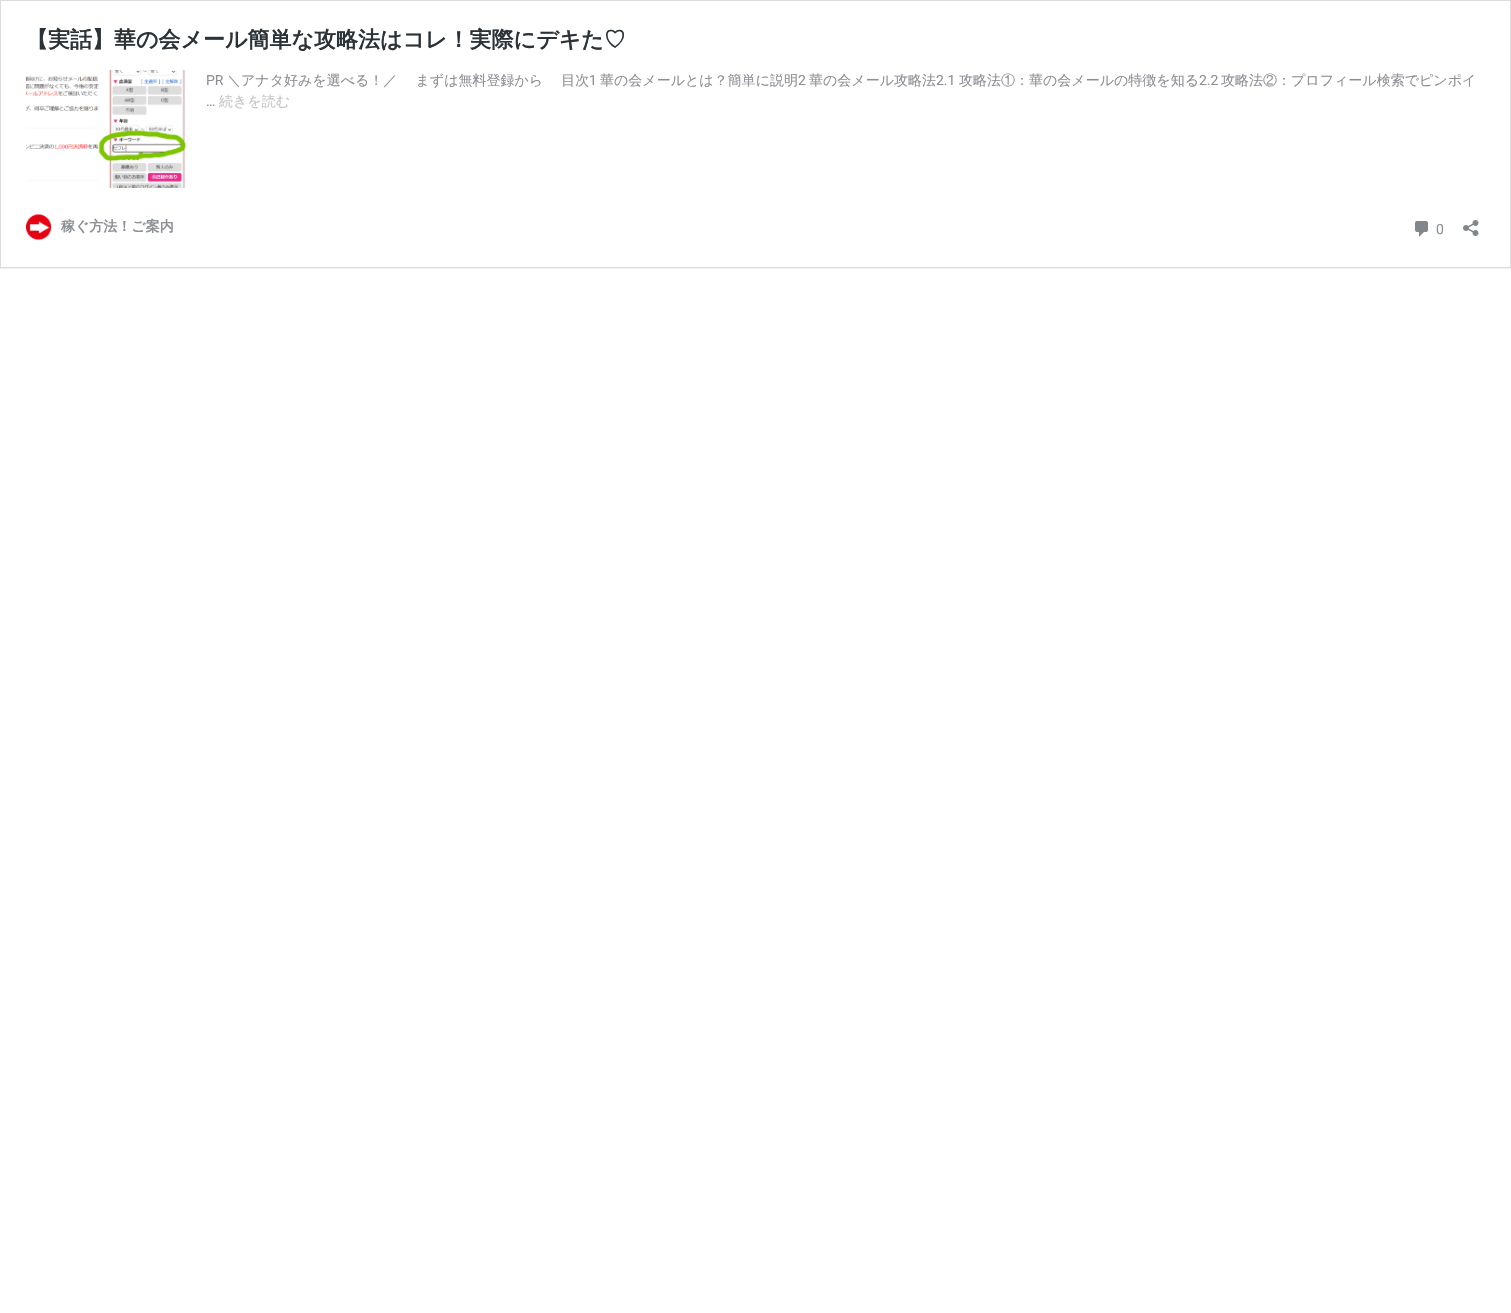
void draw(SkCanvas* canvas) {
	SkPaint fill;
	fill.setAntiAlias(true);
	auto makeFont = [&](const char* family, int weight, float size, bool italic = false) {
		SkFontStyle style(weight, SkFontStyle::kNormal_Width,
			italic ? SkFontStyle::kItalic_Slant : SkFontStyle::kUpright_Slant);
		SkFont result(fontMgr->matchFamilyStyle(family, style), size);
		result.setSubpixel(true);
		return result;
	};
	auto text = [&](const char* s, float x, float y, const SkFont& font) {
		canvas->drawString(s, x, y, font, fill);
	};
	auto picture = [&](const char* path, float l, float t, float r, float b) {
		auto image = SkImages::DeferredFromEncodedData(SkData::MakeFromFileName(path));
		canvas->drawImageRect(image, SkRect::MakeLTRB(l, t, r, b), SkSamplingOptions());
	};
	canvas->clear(0xFFFFFFFF);
	canvas->save();
	canvas->clipRect(SkRect::MakeLTRB(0, 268, 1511, 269));
	fill.setColor(0x0D000000);
	fill.setMaskFilter(SkMaskFilter::MakeBlur(kNormal_SkBlurStyle, 0.5f));
	canvas->drawRect(SkRect::MakeLTRB(0, 1, 1511, 269), fill);
	fill.setMaskFilter(nullptr);
	canvas->restore();
	fill.setStyle(SkPaint::kStroke_Style);
	fill.setStrokeWidth(1);
	fill.setColor(0xFFDCDCDE);
	canvas->drawRect(SkRect::MakeLTRB(0.5f, 0.5f, 1510.5f, 267.5f), fill);
	picture("image0.png", 26, 70, 186, 188);
	picture("image1.png", 26, 214, 51, 240);
	picture("image2.png", 1415, 221, 1428, 237);
	picture("image3.png", 1463, 220, 1479, 236);
	auto font1 = makeFont("WenQuanYi Zen Hei", 700, 22);
	fill.setStyle(SkPaint::kFill_Style);
	fill.setColor(0xFF2C3338);
	text("【実話】華の会メール簡単な攻略法はコレ！実際にデキた♡", 26, 47, font1);
	auto font2 = makeFont("Roboto", 400, 14);
	fill.setColor(0xFF8C8F94);
	text("PR", 206, 85, font2);
	auto font3 = makeFont("WenQuanYi Zen Hei", 500, 14);
	text("＼アナタ好みを選べる！／ 　まずは無料登録から　 目次", 227, 85, font3);
	text("1", 589, 85, font2);
	text("華の会メールとは？簡単に説明", 600, 85, font3);
	text("2", 798, 85, font2);
	text("華の会メール攻略法", 809, 85, font3);
	text("2.1", 936, 85, font2);
	text("攻略法①：華の会メールの特徴を知る", 959, 85, font3);
	text("2.2", 1199, 85, font2);
	text("攻略法②：プロフィール検索でピンポイ", 1221, 85, font3);
	text("…", 206, 106, font2);
	fill.setColor(0xFFC3C4C7);
	text("続きを読む", 219, 106, font3);
	auto font4 = makeFont("WenQuanYi Zen Hei", 700, 14);
	fill.setColor(0xFF8C8F94);
	text("稼ぐ方法！ご案内", 61, 231, font4);
	text("0", 1436, 234, font2);
}
